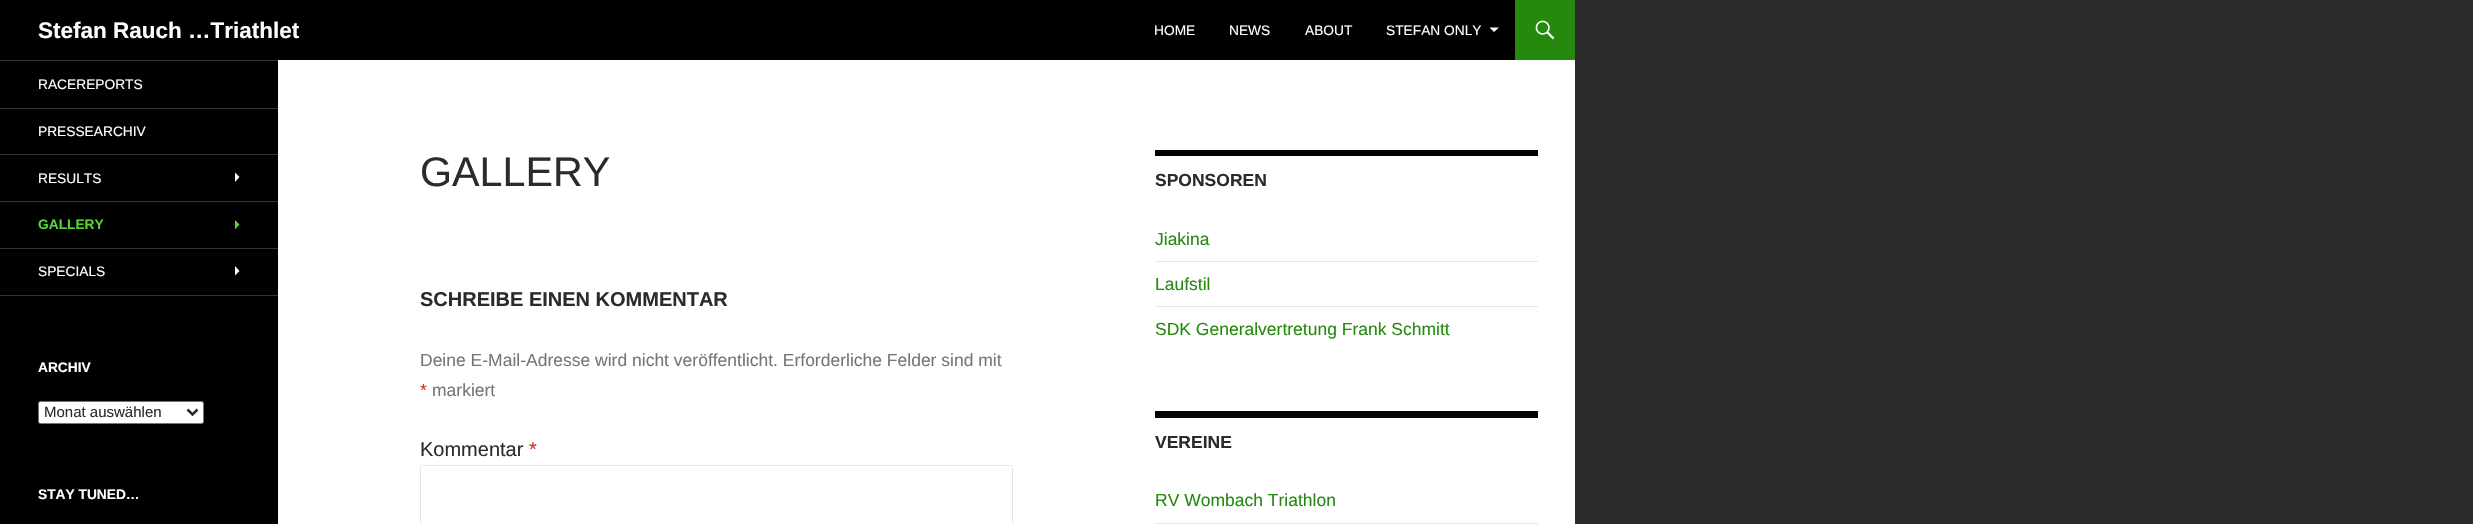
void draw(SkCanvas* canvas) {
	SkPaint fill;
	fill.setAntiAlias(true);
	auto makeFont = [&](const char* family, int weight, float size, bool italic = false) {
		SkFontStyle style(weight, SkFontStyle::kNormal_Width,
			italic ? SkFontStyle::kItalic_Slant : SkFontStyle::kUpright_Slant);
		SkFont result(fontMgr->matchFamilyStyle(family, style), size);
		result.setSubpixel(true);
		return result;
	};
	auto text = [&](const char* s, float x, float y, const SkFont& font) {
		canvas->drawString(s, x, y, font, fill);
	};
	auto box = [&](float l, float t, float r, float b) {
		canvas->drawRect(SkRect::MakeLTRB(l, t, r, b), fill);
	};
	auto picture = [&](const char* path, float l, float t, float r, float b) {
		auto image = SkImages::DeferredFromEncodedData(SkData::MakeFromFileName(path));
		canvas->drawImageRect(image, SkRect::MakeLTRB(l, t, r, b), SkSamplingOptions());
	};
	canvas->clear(0xFF2B2B2B);
	fill.setColor(0xFFFFFFFF);
	box(278, 60, 1575, 524);
	fill.setColor(0xFF000000);
	box(0, 0, 1515, 60);
	fill.setColor(0xFFFFFFFF);
	canvas->drawPath(SkPathBuilder().moveTo(1489.5f, 27.5f).lineTo(1494, 32).lineTo(1499, 27.5f).close().detach(), fill);
	fill.setColor(0xFF24890D);
	box(1515, 0, 1575, 60);
	picture("image0.png", 1535, 20, 1555, 40);
	fill.setColor(0xFF000000);
	box(0, 61, 278, 524);
	fill.setColor(0xFF333333);
	box(0, 295, 278, 296);
	box(0, 60, 278, 61);
	box(0, 108, 278, 109);
	box(0, 154, 278, 155);
	fill.setColor(0xFFFFFFFF);
	canvas->drawPath(SkPathBuilder().moveTo(235, 182).lineTo(239.5f, 177).lineTo(235, 172.5f).close().detach(), fill);
	fill.setColor(0xFF333333);
	box(0, 201, 278, 202);
	fill.setColor(0xFF55D737);
	canvas->drawPath(SkPathBuilder().moveTo(235, 229.5f).lineTo(239.5f, 224.5f).lineTo(235, 220).close().detach(), fill);
	fill.setColor(0xFF333333);
	box(0, 248, 278, 249);
	fill.setColor(0xFFFFFFFF);
	canvas->drawPath(SkPathBuilder().moveTo(235, 275.5f).lineTo(239.5f, 271).lineTo(235, 266).close().detach(), fill);
	canvas->drawRoundRect(SkRect::MakeLTRB(38.5f, 401.5f, 203.5f, 423.5f), 2, 2, fill);
	fill.setStyle(SkPaint::kStroke_Style);
	fill.setStrokeWidth(1);
	fill.setColor(0xFF767676);
	canvas->drawRoundRect(SkRect::MakeLTRB(38.5f, 401.5f, 203.5f, 423.5f), 2, 2, fill);
	fill.setStrokeWidth(2.5f);
	fill.setColor(0xFF2B2B2B);
	canvas->drawPath(SkPathBuilder().moveTo(187.5f, 409.5f).lineTo(192.5f, 414.5f).lineTo(197.5f, 409.5f).detach(), fill);
	fill.setStrokeWidth(1);
	fill.setColor(0xFFE6E6E6);
	canvas->drawRoundRect(SkRect::MakeLTRB(420.5f, 465.5f, 1012.5f, 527.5f), 2, 2, fill);
	fill.setStyle(SkPaint::kFill_Style);
	fill.setColor(0xFF000000);
	box(1155, 150, 1538, 156);
	fill.setColor(0xFFE6E6E6);
	box(1155, 261, 1538, 262);
	box(1155, 306, 1538, 307);
	fill.setColor(0xFF000000);
	box(1155, 411, 1538, 418);
	fill.setColor(0xFFE6E6E6);
	box(1155, 523, 1538, 524);
	auto font1 = makeFont("Liberation Sans", 700, 22.5f);
	fill.setColor(0xFFFFFFFF);
	text("Stefan Rauch …Triathlet", 38, 38, font1);
	auto font2 = makeFont("Liberation Sans", 400, 13.75f);
	text("HOME", 1154, 35, font2);
	text("NEWS", 1229, 35, font2);
	text("ABOUT", 1305, 35, font2);
	text("STEFAN ONLY", 1386, 35, font2);
	text("RACEREPORTS", 38, 89, font2);
	text("PRESSEARCHIV", 38, 136, font2);
	text("RESULTS", 38, 183, font2);
	auto font3 = makeFont("Liberation Sans", 700, 13.75f);
	fill.setColor(0xFF55D737);
	text("GALLERY", 38, 229, font3);
	fill.setColor(0xFFFFFFFF);
	text("SPECIALS", 38, 276, font2);
	text("ARCHIV", 38, 372, font3);
	auto font4 = makeFont("Liberation Sans", 400, 15);
	fill.setColor(0xFF2B2B2B);
	text("Monat auswählen", 44, 417, font4);
	fill.setColor(0xFFFFFFFF);
	text("STAY TUNED…", 38, 499, font3);
	auto font5 = makeFont("Liberation Sans", 400, 41.25f);
	fill.setColor(0xFF2B2B2B);
	text("GALLERY", 420, 186, font5);
	auto font6 = makeFont("Liberation Sans", 700, 20);
	text("SCHREIBE EINEN KOMMENTAR", 420, 306, font6);
	auto font7 = makeFont("Liberation Sans", 400, 17.5f);
	fill.setColor(0xFF767676);
	text("Deine E-Mail-Adresse wird nicht veröffentlicht. Erforderliche Felder sind mit", 420, 366, font7);
	fill.setColor(0xFFC0392B);
	text("*", 420, 396, font7);
	fill.setColor(0xFF767676);
	text("markiert", 432, 396, font7);
	auto font8 = makeFont("Liberation Sans", 400, 20);
	fill.setColor(0xFF2B2B2B);
	text("Kommentar", 420, 456, font8);
	fill.setColor(0xFFC0392B);
	text("*", 529, 456, font8);
	auto font9 = makeFont("Liberation Sans", 700, 17.5f);
	fill.setColor(0xFF2B2B2B);
	text("SPONSOREN", 1155, 186, font9);
	fill.setColor(0xFF24890D);
	text("Jiakina", 1155, 245, font7);
	text("Laufstil", 1155, 290, font7);
	text("SDK Generalvertretung Frank Schmitt", 1155, 335, font7);
	fill.setColor(0xFF2B2B2B);
	text("VEREINE", 1155, 448, font9);
	fill.setColor(0xFF24890D);
	text("RV Wombach Triathlon", 1155, 506, font7);
}
